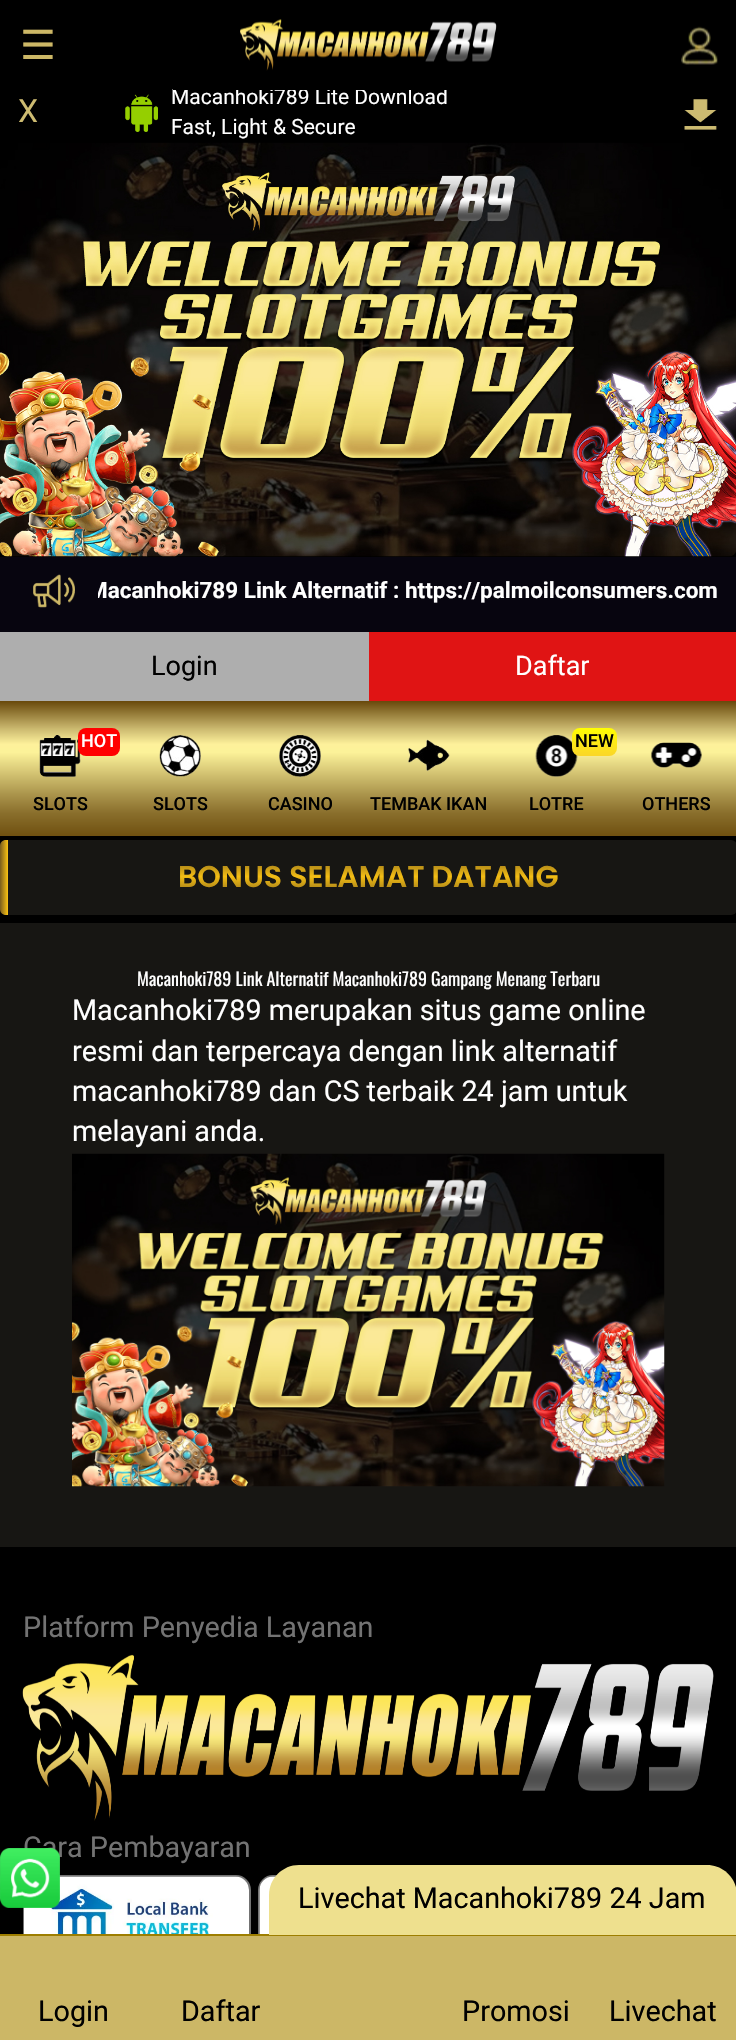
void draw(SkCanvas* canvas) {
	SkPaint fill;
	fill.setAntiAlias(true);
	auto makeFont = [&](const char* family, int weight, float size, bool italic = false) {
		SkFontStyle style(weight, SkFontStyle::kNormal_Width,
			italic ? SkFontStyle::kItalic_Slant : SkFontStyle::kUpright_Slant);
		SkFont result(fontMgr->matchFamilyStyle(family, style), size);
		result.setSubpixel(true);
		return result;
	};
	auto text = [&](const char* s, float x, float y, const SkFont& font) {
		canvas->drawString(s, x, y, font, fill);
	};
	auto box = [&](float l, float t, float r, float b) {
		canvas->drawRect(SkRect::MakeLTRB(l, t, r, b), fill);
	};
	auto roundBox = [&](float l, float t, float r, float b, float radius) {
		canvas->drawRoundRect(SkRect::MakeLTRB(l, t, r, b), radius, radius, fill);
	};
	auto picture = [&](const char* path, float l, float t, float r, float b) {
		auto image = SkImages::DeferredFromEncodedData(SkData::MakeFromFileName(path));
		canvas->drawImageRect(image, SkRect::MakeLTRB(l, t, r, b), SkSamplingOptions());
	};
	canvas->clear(0xFF000000);
	picture("image0.png", 240, 19, 497, 71);
	picture("image1.png", 681, 26, 718, 65);
	picture("image2.png", 125, 94, 158, 132);
	picture("image3.png", 684, 99, 717, 130);
	picture("image4.png", 0, 142, 736, 557);
	fill.setColor(0xFF07050F);
	box(0, 557, 736, 632);
	picture("image5.png", 33, 574, 75, 608);
	fill.setColor(0xFFAEAEAE);
	box(0, 632, 369, 701);
	fill.setColor(0xFFE01414);
	box(369, 632, 736, 701);
	{
		const SkColor colors[] = {0xFF68480B, 0xFFCDBB71, 0xFFFDF19B, 0xFFFCF299, 0xFFAB954C, 0xFF8A6F2C, 0xFF6F5010};
		const float stops[] = {0, 0.21f, 0.32f, 0.38f, 0.69f, 0.83f, 1};
		const SkPoint ends[] = {{368, 701}, {368, 836}};
		fill.setShader(SkGradientShader::MakeLinear(ends, colors, stops, 7, SkTileMode::kClamp));
		fill.setAlpha(255);
	}
	box(0, 701, 736, 836);
	picture("image6.png", 39, 735, 81, 777);
	fill.setShader(nullptr);
	fill.setColor(0xFFFF0000);
	roundBox(78, 728, 120, 756, 8);
	picture("image7.png", 159, 735, 201, 777);
	picture("image8.png", 279, 735, 321, 777);
	picture("image9.png", 408, 739, 450, 771);
	picture("image10.png", 535, 735, 578, 777);
	{
		const SkColor colors[] = {0xFFFBD629, 0xFFFFFF00};
		const float stops[] = {0, 1};
		const SkPoint ends[] = {{594, 756}, {594, 727}};
		fill.setShader(SkGradientShader::MakeLinear(ends, colors, stops, 2, SkTileMode::kClamp));
		fill.setAlpha(255);
	}
	roundBox(572, 728, 617, 756, 8);
	picture("image11.png", 650, 742, 702, 768);
	fill.setShader(nullptr);
	fill.setColor(0xFF171613);
	roundBox(0, 840, 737, 915, 6);
	{
		const SkColor colors[] = {0xFF795C1D, 0xFFF3BD14};
		const float stops[] = {0, 1};
		const SkPoint ends[] = {{0, 878}, {7.5f, 878}};
		fill.setShader(SkGradientShader::MakeLinear(ends, colors, stops, 2, SkTileMode::kClamp));
		fill.setAlpha(255);
	}
	canvas->drawPath(SkPathBuilder().moveTo(6, 840).lineTo(8, 840).lineTo(8, 915).lineTo(6, 915).cubicTo(2.5f, 915, 0, 912.5f, 0, 909).lineTo(0, 846).cubicTo(0, 842.5f, 2.5f, 840, 6, 840).close().detach(), fill);
	fill.setShader(nullptr);
	fill.setColor(0xFF171613);
	box(0, 923, 736, 1547);
	picture("image12.png", 72, 1153, 665, 1487);
	picture("image13.png", 22, 1654, 714, 1821);
	fill.setStyle(SkPaint::kStroke_Style);
	fill.setStrokeWidth(2);
	fill.setColor(0xFF737373);
	canvas->drawRoundRect(SkRect::MakeLTRB(24, 1876, 250, 1957), 14, 14, fill);
	picture("image14.png", 24, 1876, 249, 1934);
	canvas->drawRoundRect(SkRect::MakeLTRB(259, 1876, 485, 1957), 14, 14, fill);
	picture("image15.png", 259, 1876, 276, 1934);
	fill.setStyle(SkPaint::kFill_Style);
	fill.setColor(0xFF9E7E00);
	box(0, 1934, 736, 1936);
	fill.setColor(0xFFEEE08E);
	canvas->drawPath(SkPathBuilder().moveTo(299, 1865).lineTo(707, 1865).cubicTo(723.5f, 1865, 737, 1878.5f, 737, 1895).lineTo(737, 1935).lineTo(269, 1935).lineTo(269, 1895).cubicTo(269, 1878.5f, 282.5f, 1865, 299, 1865).close().detach(), fill);
	fill.setColor(0xFFCCB766);
	box(0, 1936, 736, 2040);
	auto font1 = makeFont("DejaVu Sans", 400, 40);
	text("☰", 20, 59, font1);
	auto font2 = makeFont("Roboto", 400, 32);
	fill.setColor(0xFFCDBB71);
	text("X", 18, 122, font2);
	auto font3 = makeFont("Roboto", 400, 21);
	fill.setColor(0xFFFFFFFF);
	text("Macanhoki789 Lite Download", 171, 104, font3);
	fill.setColor(0xFF000000);
	box(173, 88, 447, 90);
	fill.setColor(0xFFFFFFFF);
	text("Fast, Light & Secure", 171, 134, font3);
	canvas->save();
	canvas->clipRect(SkRect::MakeLTRB(98, 575, 719, 612));
	auto font4 = makeFont("Roboto", 700, 22.5f);
	text("Macanhoki789 Link Alternatif : https://palmoilconsumers.com", 88, 598, font4);
	canvas->restore();
	auto font5 = makeFont("Roboto", 400, 27);
	fill.setColor(0xFF000000);
	text("Login", 151, 675, font5);
	fill.setColor(0xFFFFFFFF);
	text("Daftar", 515, 675, font5);
	auto font6 = makeFont("Roboto", 500, 18);
	text("HOT", 81, 747, font6);
	fill.setColor(0xFF000000);
	text("SLOTS", 33, 810, font6);
	text("SLOTS", 153, 810, font6);
	text("CASINO", 268, 810, font6);
	text("TEMBAK IKAN", 370, 810, font6);
	text("NEW", 575, 747, font6);
	text("LOTRE", 529, 810, font6);
	text("OTHERS", 642, 810, font6);
	auto font7 = makeFont("Poppins", 600, 30);
	{
		const SkColor colors[] = {0xFF795C1D, 0xFFF3BD14, 0xFF795C1D};
		const float stops[] = {0, 0.5f, 1};
		const SkPoint ends[] = {{368, 854}, {368, 899}};
		fill.setShader(SkGradientShader::MakeLinear(ends, colors, stops, 3, SkTileMode::kClamp));
		fill.setAlpha(255);
	}
	text("BONUS SELAMAT DATANG", 178, 887, font7);
	auto font8 = makeFont("Oswald", 400, 18);
	fill.setShader(nullptr);
	fill.setColor(0xFFFFFFFF);
	text("Macanhoki789 Link Alternatif Macanhoki789 Gampang Menang Terbaru", 137, 986, font8);
	auto font9 = makeFont("Roboto", 400, 28.75f);
	text("Macanhoki789 merupakan situs game online", 72, 1020, font9);
	text("resmi dan terpercaya dengan link alternatif", 72, 1061, font9);
	text("macanhoki789 dan CS terbaik 24 jam untuk", 72, 1101, font9);
	text("melayani anda.", 72, 1141, font9);
	fill.setColor(0xFF737373);
	text("Platform Penyedia Layanan", 23, 1637, font9);
	text("Cara Pembayaran", 23, 1857, font9);
	picture("image16.png", 0, 1848, 60, 1908);
	fill.setColor(0xFF000000);
	text("Livechat Macanhoki789 24 Jam", 298, 1908, font9);
	text("Login", 38, 2021, font9);
	text("Daftar", 181, 2021, font9);
	text("Promosi", 462, 2021, font9);
	text("Livechat", 609, 2021, font9);
}
